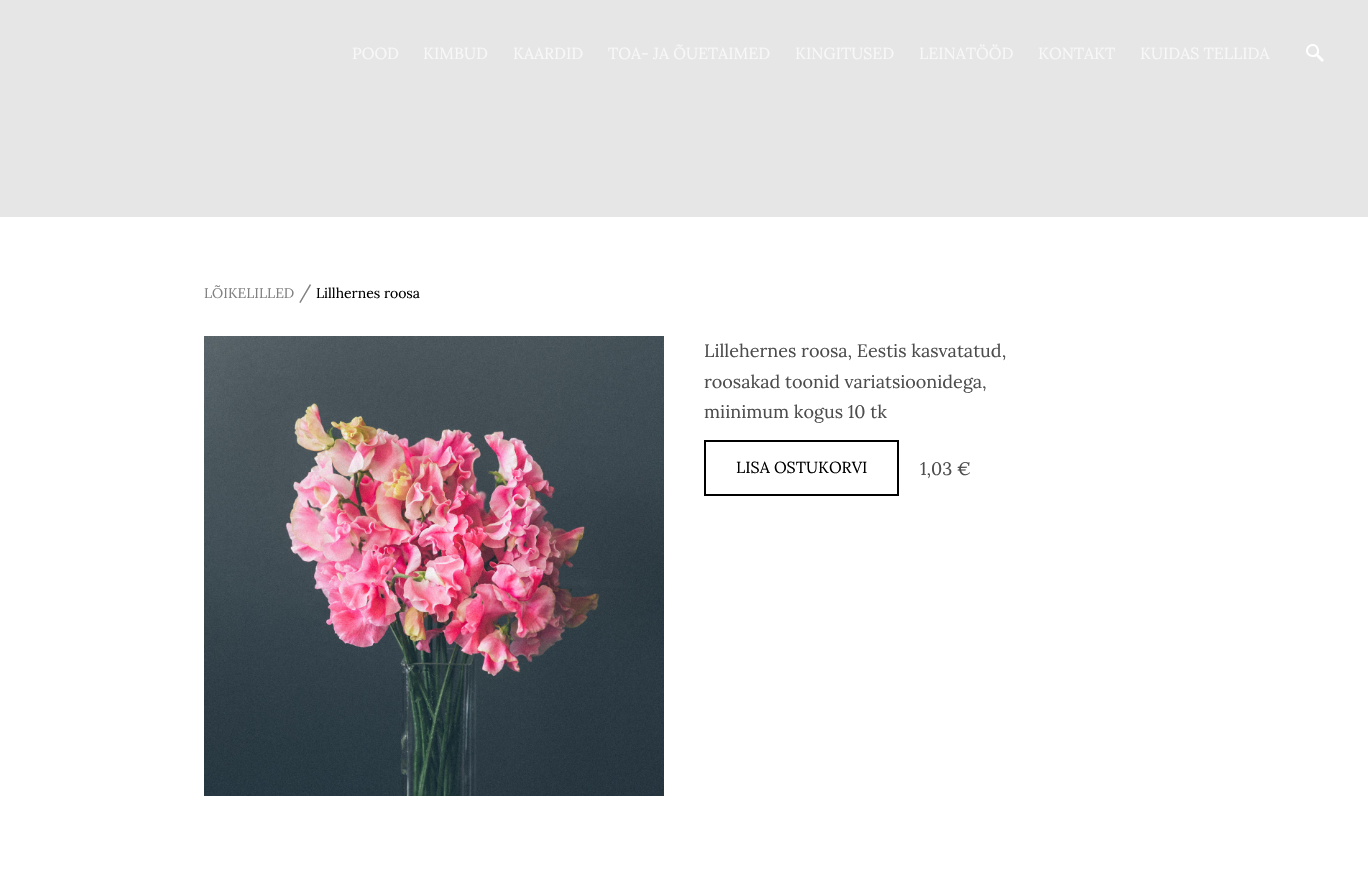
void draw(SkCanvas* canvas) {
	SkPaint fill;
	fill.setAntiAlias(true);
	auto makeFont = [&](const char* family, int weight, float size, bool italic = false) {
		SkFontStyle style(weight, SkFontStyle::kNormal_Width,
			italic ? SkFontStyle::kItalic_Slant : SkFontStyle::kUpright_Slant);
		SkFont result(fontMgr->matchFamilyStyle(family, style), size);
		result.setSubpixel(true);
		return result;
	};
	auto text = [&](const char* s, float x, float y, const SkFont& font) {
		canvas->drawString(s, x, y, font, fill);
	};
	auto box = [&](float l, float t, float r, float b) {
		canvas->drawRect(SkRect::MakeLTRB(l, t, r, b), fill);
	};
	auto picture = [&](const char* path, float l, float t, float r, float b) {
		auto image = SkImages::DeferredFromEncodedData(SkData::MakeFromFileName(path));
		canvas->drawImageRect(image, SkRect::MakeLTRB(l, t, r, b), SkSamplingOptions());
	};
	canvas->clear(0xFFFFFFFF);
	fill.setColor(0xFFE6E6E6);
	box(0, 0, 1368, 217);
	picture("image0.png", 1306, 44, 1324, 62);
	picture("image1.png", 204, 336, 664, 796);
	fill.setStyle(SkPaint::kStroke_Style);
	fill.setStrokeWidth(2);
	fill.setColor(0xFF000000);
	canvas->drawRect(SkRect::MakeLTRB(705, 441, 898, 495), fill);
	auto font1 = makeFont("Lora", 400, 16);
	fill.setStyle(SkPaint::kFill_Style);
	fill.setColor(0xFFF8F8F8);
	text("POOD", 352, 59, font1);
	text("KIMBUD", 423, 59, font1);
	text("KAARDID", 513, 59, font1);
	text("TOA- JA ÕUETAIMED", 608, 59, font1);
	text("KINGITUSED", 795, 59, font1);
	text("LEINATÖÖD", 919, 59, font1);
	text("KONTAKT", 1038, 59, font1);
	text("KUIDAS TELLIDA", 1140, 59, font1);
	auto font2 = makeFont("Lora", 400, 14);
	fill.setColor(0xFF808080);
	text("LÕIKELILLED", 204, 298, font2);
	auto font3 = makeFont("Lora", 400, 18);
	text("/", 299, 298, font3);
	fill.setColor(0xFF000000);
	text("Lillhernes roosa", 316, 298, font2);
	fill.setColor(0xFF4D4D4D);
	text("Lillehernes roosa, Eestis kasvatatud,", 704, 357, font3);
	text("roosakad toonid variatsioonidega,", 704, 388, font3);
	text("miinimum kogus 10 tk", 704, 418, font3);
	fill.setColor(0xFF000000);
	text("LISA OSTUKORVI", 736, 473, font1);
	fill.setColor(0xFF4D4D4D);
	text("1,03 €", 920, 475, font3);
}
